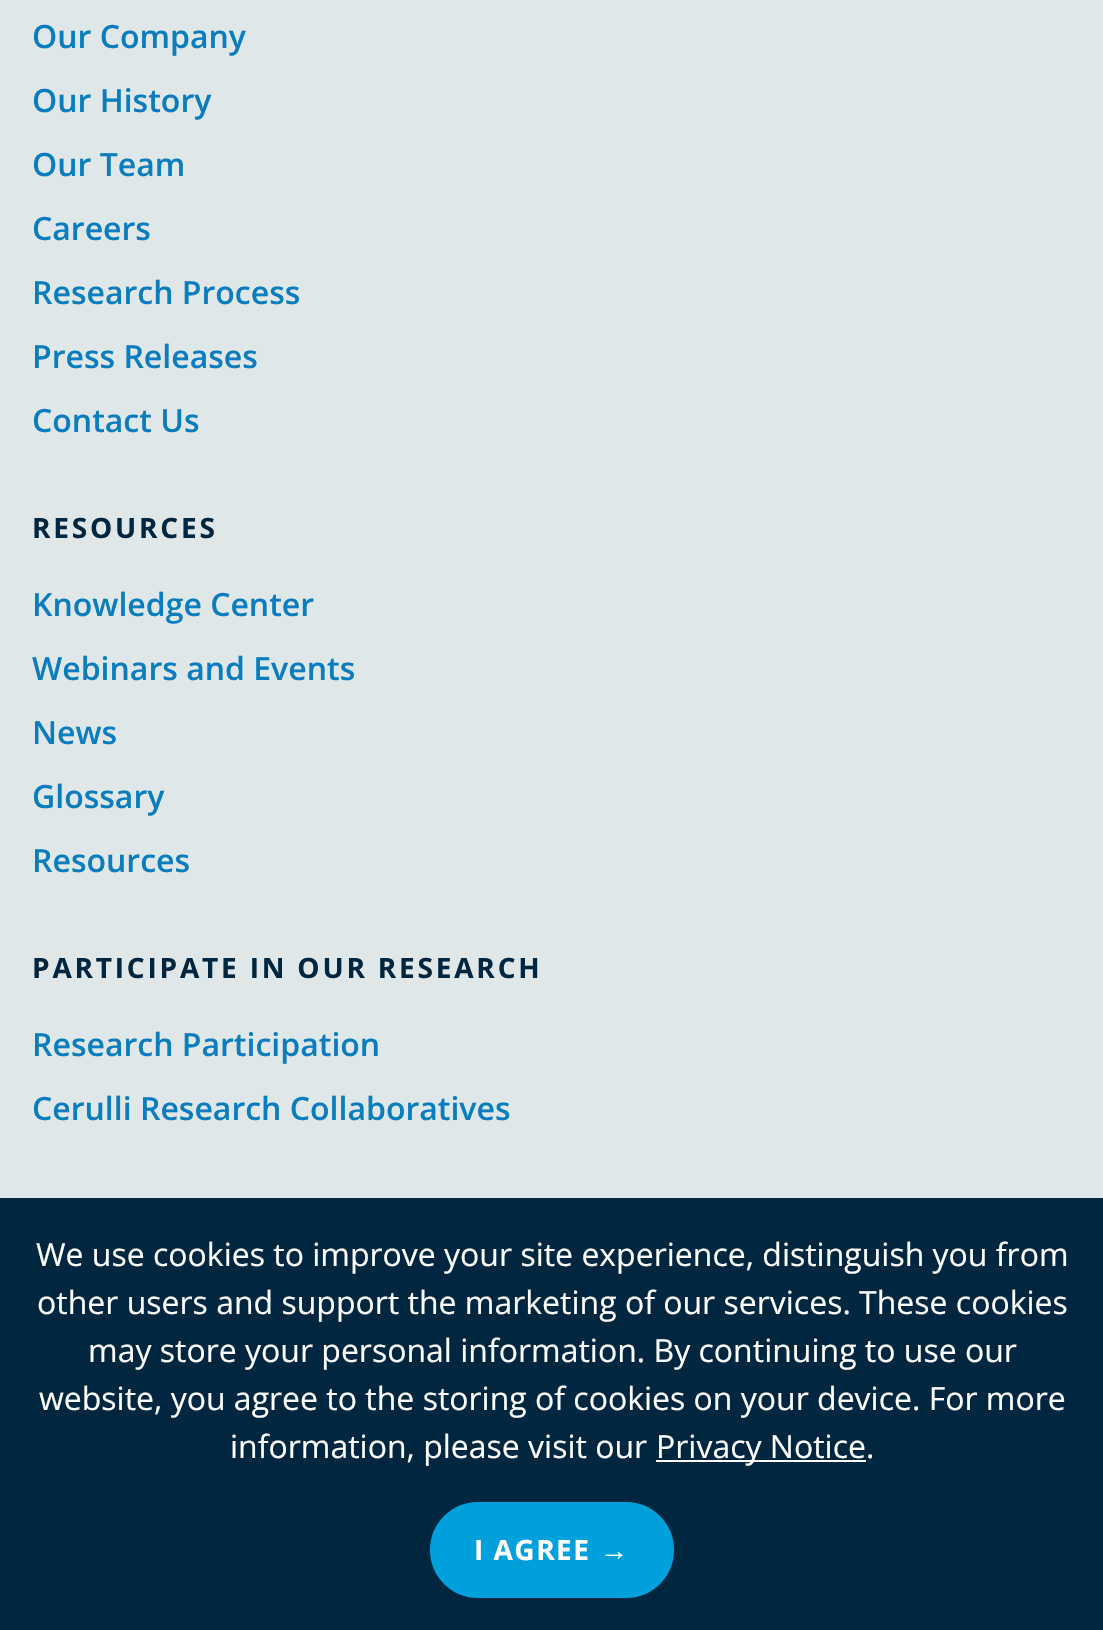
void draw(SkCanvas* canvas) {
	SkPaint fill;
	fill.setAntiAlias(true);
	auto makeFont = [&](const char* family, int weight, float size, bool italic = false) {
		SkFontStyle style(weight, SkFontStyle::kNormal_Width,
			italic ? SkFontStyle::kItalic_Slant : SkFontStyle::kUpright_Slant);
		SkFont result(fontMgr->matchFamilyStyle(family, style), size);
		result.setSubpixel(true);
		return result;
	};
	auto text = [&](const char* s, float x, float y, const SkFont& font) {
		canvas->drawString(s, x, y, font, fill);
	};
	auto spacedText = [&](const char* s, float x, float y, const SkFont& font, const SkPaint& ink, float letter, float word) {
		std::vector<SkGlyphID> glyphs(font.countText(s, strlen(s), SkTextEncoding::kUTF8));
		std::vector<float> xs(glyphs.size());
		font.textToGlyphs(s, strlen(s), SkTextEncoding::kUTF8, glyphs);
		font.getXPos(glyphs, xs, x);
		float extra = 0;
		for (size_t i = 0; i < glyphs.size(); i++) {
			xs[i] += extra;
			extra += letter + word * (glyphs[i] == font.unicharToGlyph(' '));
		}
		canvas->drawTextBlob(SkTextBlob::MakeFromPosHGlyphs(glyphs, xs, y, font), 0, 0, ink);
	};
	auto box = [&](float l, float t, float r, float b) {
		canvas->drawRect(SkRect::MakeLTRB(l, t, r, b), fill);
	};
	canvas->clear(0xFFE0E7E9);
	fill.setColor(0xFF002640);
	box(0, 1198, 1103, 1630);
	fill.setColor(0xFFFFFFFF);
	box(656, 1460, 866, 1462);
	fill.setColor(0xFF00A0DC);
	canvas->drawRoundRect(SkRect::MakeLTRB(432, 1504, 672, 1596), 46, 46, fill);
	fill.setStyle(SkPaint::kStroke_Style);
	fill.setStrokeWidth(4);
	canvas->drawRoundRect(SkRect::MakeLTRB(432, 1504, 672, 1596), 46, 46, fill);
	auto font1 = makeFont("Open Sans", 600, 32);
	fill.setStyle(SkPaint::kFill_Style);
	fill.setColor(0xFF0A7DBE);
	text("Our Company", 32, 48, font1);
	text("Our History", 32, 112, font1);
	text("Our Team", 32, 176, font1);
	text("Careers", 32, 240, font1);
	text("Research Process", 32, 304, font1);
	text("Press Releases", 32, 368, font1);
	text("Contact Us", 32, 432, font1);
	auto font2 = makeFont("Open Sans", 700, 28);
	fill.setColor(0xFF002640);
	spacedText("RESOURCES", 32, 538, font2, fill, 2.8f, 0);
	fill.setColor(0xFF0A7DBE);
	text("Knowledge Center", 32, 616, font1);
	text("Webinars and Events", 32, 680, font1);
	text("News", 32, 744, font1);
	text("Glossary", 32, 808, font1);
	text("Resources", 32, 872, font1);
	fill.setColor(0xFF002640);
	spacedText("PARTICIPATE IN OUR RESEARCH", 32, 978, font2, fill, 2.8f, 0);
	fill.setColor(0xFF0A7DBE);
	text("Research Participation", 32, 1056, font1);
	text("Cerulli Research Collaboratives", 32, 1120, font1);
	auto font3 = makeFont("Open Sans", 400, 32);
	fill.setColor(0xFFFFFFFF);
	text("We use cookies to improve your site experience, distinguish you from", 36, 1266, font3);
	text("other users and support the marketing of our services. These cookies", 37, 1314, font3);
	text("may store your personal information. By continuing to use our", 88, 1362, font3);
	text("website, you agree to the storing of cookies on your device. For more", 39, 1410, font3);
	text("information, please visit our", 230, 1458, font3);
	text("Privacy Notice.", 656, 1458, font3);
	spacedText("I AGREE", 474, 1560, font2, fill, 1.5f, 0);
	auto font4 = makeFont("Liberation Sans", 700, 28);
	spacedText("→", 600, 1560, font4, fill, 1.5f, 0);
}
